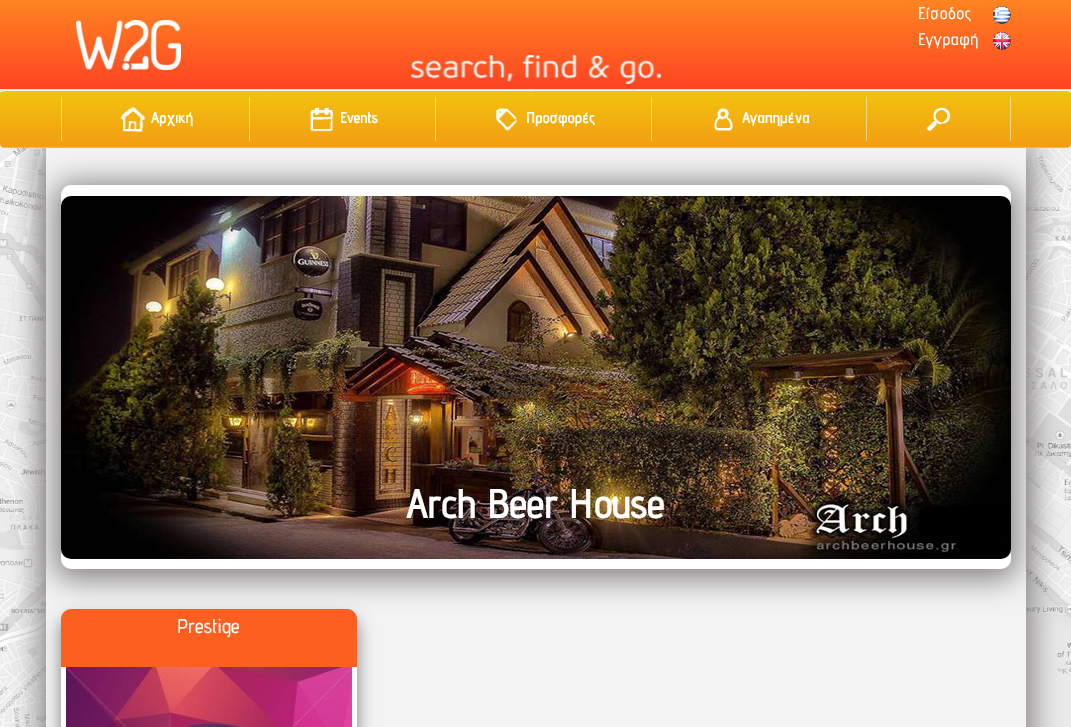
void draw(SkCanvas* canvas) {
	SkPaint fill;
	fill.setAntiAlias(true);
	auto makeFont = [&](const char* family, int weight, float size, bool italic = false) {
		SkFontStyle style(weight, SkFontStyle::kNormal_Width,
			italic ? SkFontStyle::kItalic_Slant : SkFontStyle::kUpright_Slant);
		SkFont result(fontMgr->matchFamilyStyle(family, style), size);
		result.setSubpixel(true);
		return result;
	};
	auto text = [&](const char* s, float x, float y, const SkFont& font) {
		canvas->drawString(s, x, y, font, fill);
	};
	auto box = [&](float l, float t, float r, float b) {
		canvas->drawRect(SkRect::MakeLTRB(l, t, r, b), fill);
	};
	auto roundBox = [&](float l, float t, float r, float b, float radius) {
		canvas->drawRoundRect(SkRect::MakeLTRB(l, t, r, b), radius, radius, fill);
	};
	auto picture = [&](const char* path, float l, float t, float r, float b) {
		auto image = SkImages::DeferredFromEncodedData(SkData::MakeFromFileName(path));
		canvas->drawImageRect(image, SkRect::MakeLTRB(l, t, r, b), SkSamplingOptions());
	};
	canvas->clear(0xFFFFFFFF);
	picture("image0.png", 0, 90, 1071, 727);
	{
		const SkColor colors[] = {0xFFFE8421, 0xFFFE4322};
		const float stops[] = {0, 1};
		const SkPoint ends[] = {{536, 0}, {536, 89}};
		fill.setShader(SkGradientShader::MakeLinear(ends, colors, stops, 2, SkTileMode::kClamp));
		fill.setAlpha(255);
	}
	box(0, 0, 1071, 89);
	fill.setShader(nullptr);
	fill.setColor(0xFFE7E7E7);
	box(0, 89, 1071, 90);
	picture("image1.png", 76, 20, 181, 70);
	picture("image2.png", 411, 55, 661, 84);
	picture("image3.png", 993, 6, 1011, 24);
	picture("image4.png", 993, 32, 1011, 50);
	canvas->save();
	canvas->clipPath(SkPathBuilder().moveTo(4, 90).lineTo(1067, 90).cubicTo(1069, 90, 1071, 92, 1071, 94).lineTo(1071, 144).cubicTo(1071, 146, 1069, 148, 1067, 148).lineTo(4, 148).cubicTo(2, 148, 0, 146, 0, 144).lineTo(0, 94).cubicTo(0, 92, 2, 90, 4, 90).close().detach(), true);
	{
		const SkColor colors[] = {0xFFF1C30E, 0xFFF49D12};
		const float stops[] = {0, 1};
		const SkPoint ends[] = {{536, 35}, {536, 91}};
		fill.setShader(SkGradientShader::MakeLinear(ends, colors, stops, 2, SkTileMode::kClamp));
		fill.setAlpha(255);
	}
	box(0, 90, 1071, 91);
	canvas->restore();
	fill.setShader(nullptr);
	fill.setColor(0xFF837F7F);
	fill.setMaskFilter(SkMaskFilter::MakeBlur(kNormal_SkBlurStyle, 15));
	canvas->drawRect(SkRect::MakeLTRB(40, 143, 1032, 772), fill);
	fill.setMaskFilter(nullptr);
	fill.setColor(0xFFF3F3F3);
	box(46, 148, 1026, 727);
	fill.setColor(0xFF837F7F);
	fill.setMaskFilter(SkMaskFilter::MakeBlur(kNormal_SkBlurStyle, 15));
	canvas->drawRoundRect(SkRect::MakeLTRB(55, 183, 1017, 579), 16, 16, fill);
	fill.setMaskFilter(nullptr);
	canvas->save();
	canvas->clipPath(SkPathBuilder().moveTo(4, 90).lineTo(1067, 90).cubicTo(1069, 90, 1071, 92, 1071, 94).lineTo(1071, 144).cubicTo(1071, 146, 1069, 148, 1067, 148).lineTo(4, 148).cubicTo(2, 148, 0, 146, 0, 144).lineTo(0, 94).cubicTo(0, 92, 2, 90, 4, 90).close().detach(), true);
	{
		const SkColor colors[] = {0xFFF1C30E, 0xFFF49D12};
		const float stops[] = {0, 1};
		const SkPoint ends[] = {{536, 91}, {536, 147}};
		fill.setShader(SkGradientShader::MakeLinear(ends, colors, stops, 2, SkTileMode::kClamp));
		fill.setAlpha(255);
	}
	box(0, 91, 1071, 147);
	{
		const SkColor colors[] = {0xFFF1C30E, 0xFFF49D12};
		const float stops[] = {0, 1};
		const SkPoint ends[] = {{536, 147}, {536, 203}};
		fill.setShader(SkGradientShader::MakeLinear(ends, colors, stops, 2, SkTileMode::kClamp));
		fill.setAlpha(255);
	}
	box(0, 147, 1071, 148);
	canvas->restore();
	fill.setStyle(SkPaint::kStroke_Style);
	fill.setStrokeWidth(1);
	fill.setShader(nullptr);
	fill.setColor(0xFFFFFFFF);
	canvas->drawPath(SkPathBuilder().moveTo(1.5f, 91.5f).lineTo(4, 90.5f).lineTo(1067, 90.5f).lineTo(1069.5f, 91.5f).detach(), fill);
	fill.setStyle(SkPaint::kFill_Style);
	fill.setColor(0x80FFFFFF);
	box(249, 97, 250, 141);
	box(61, 97, 62, 141);
	picture("image5.png", 120, 107, 145, 132);
	box(435, 97, 436, 141);
	picture("image6.png", 310, 107, 334, 132);
	box(651, 97, 652, 141);
	picture("image7.png", 496, 108, 517, 131);
	box(866, 97, 867, 141);
	picture("image8.png", 714, 108, 733, 131);
	box(1010, 97, 1011, 141);
	picture("image9.png", 926, 107, 951, 132);
	fill.setColor(0xFFFFFFFF);
	roundBox(61, 185, 1011, 569, 10);
	picture("image10.png", 61, 196, 1011, 559);
	fill.setColor(0xFF837F7F);
	fill.setMaskFilter(SkMaskFilter::MakeBlur(kNormal_SkBlurStyle, 8.5f));
	canvas->drawRoundRect(SkRect::MakeLTRB(61, 619, 357, 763), 10, 10, fill);
	fill.setMaskFilter(nullptr);
	fill.setColor(0xFFFFFFFF);
	roundBox(61, 609, 357, 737, 10);
	fill.setColor(0xFFFD5F20);
	canvas->drawPath(SkPathBuilder().moveTo(71, 609).lineTo(347, 609).cubicTo(352.5f, 609, 357, 613.5f, 357, 619).lineTo(357, 667).lineTo(61, 667).lineTo(61, 619).cubicTo(61, 613.5f, 65.5f, 609, 71, 609).close().detach(), fill);
	picture("image11.png", 66, 667, 352, 727);
	auto font1 = makeFont("Advent Pro", 500, 17);
	fill.setColor(0xFFFFFFFF);
	text("Είσοδος", 918, 19, font1);
	text("Εγγραφή", 918, 45, font1);
	auto font2 = makeFont("Advent Pro", 700, 15);
	text("Αρχική", 151, 123, font2);
	text("Events", 340, 123, font2);
	text("Προσφορές", 526, 123, font2);
	text("Αγαπημένα", 742, 123, font2);
	auto font3 = makeFont("Advent Pro", 700, 40);
	text("Arch Beer House", 406, 518, font3);
	auto font4 = makeFont("Advent Pro", 500, 20);
	text("Prestige", 177, 633, font4);
}
